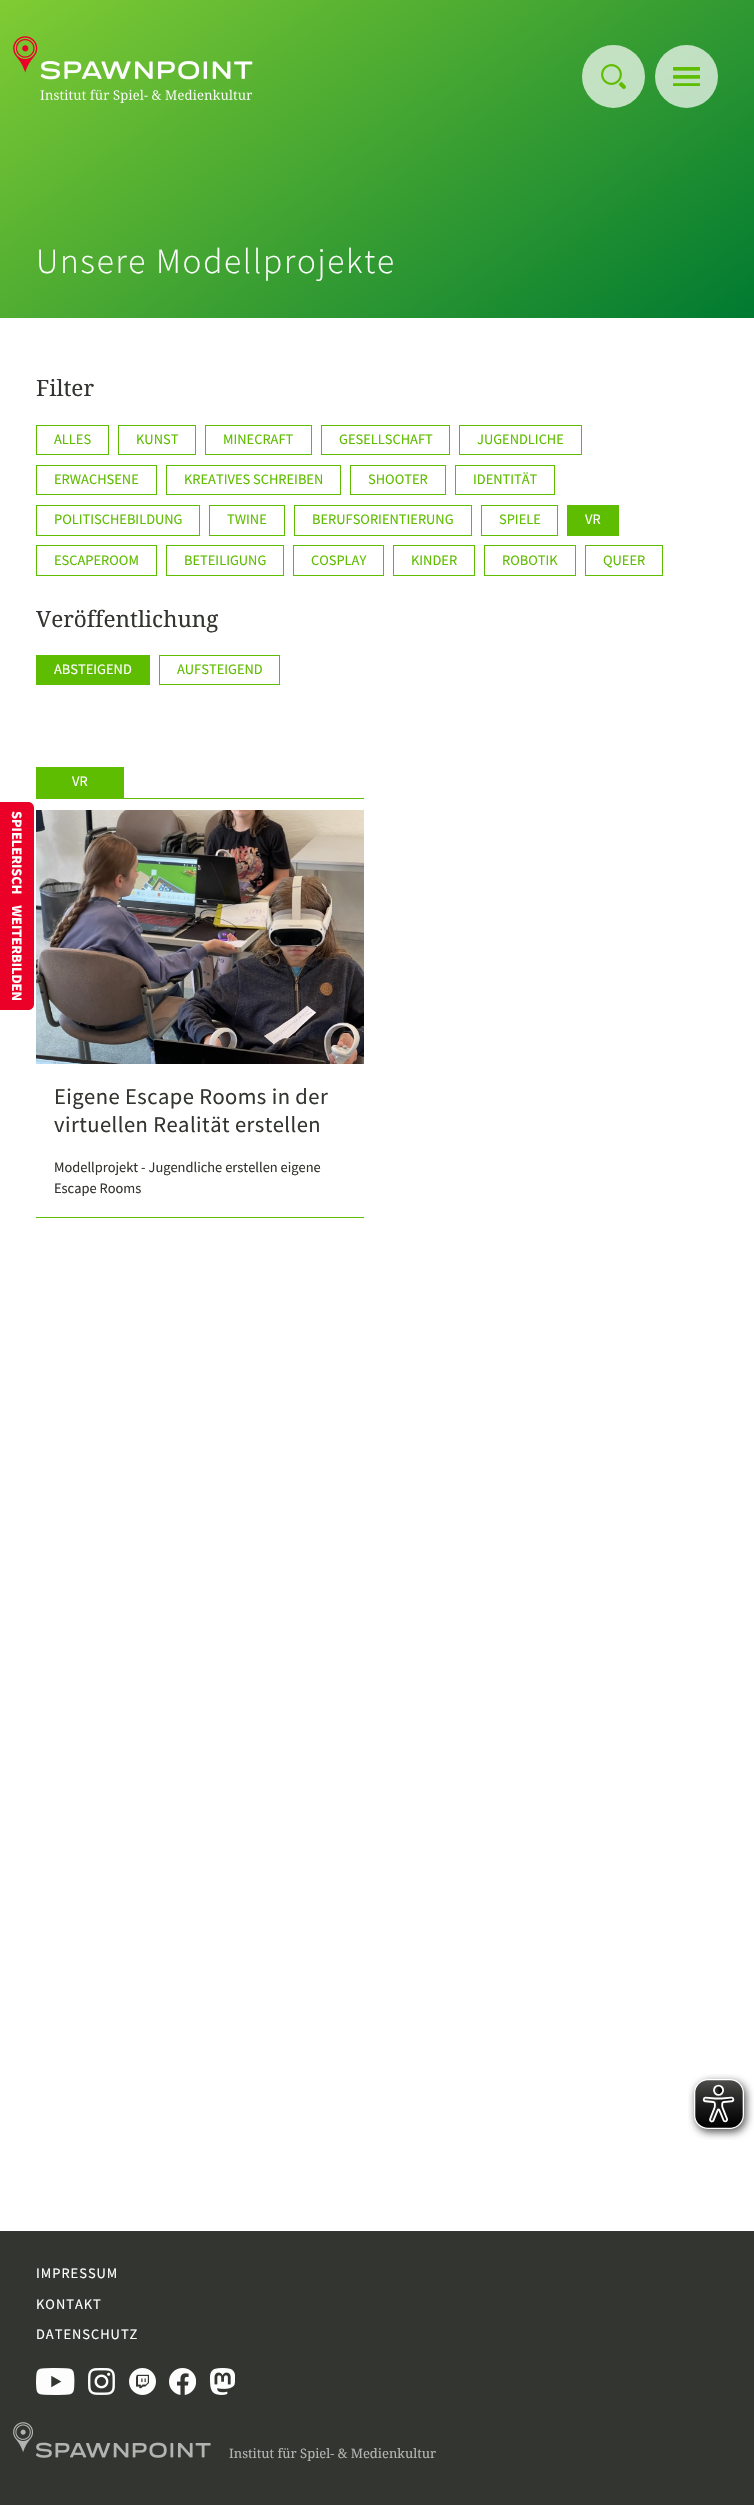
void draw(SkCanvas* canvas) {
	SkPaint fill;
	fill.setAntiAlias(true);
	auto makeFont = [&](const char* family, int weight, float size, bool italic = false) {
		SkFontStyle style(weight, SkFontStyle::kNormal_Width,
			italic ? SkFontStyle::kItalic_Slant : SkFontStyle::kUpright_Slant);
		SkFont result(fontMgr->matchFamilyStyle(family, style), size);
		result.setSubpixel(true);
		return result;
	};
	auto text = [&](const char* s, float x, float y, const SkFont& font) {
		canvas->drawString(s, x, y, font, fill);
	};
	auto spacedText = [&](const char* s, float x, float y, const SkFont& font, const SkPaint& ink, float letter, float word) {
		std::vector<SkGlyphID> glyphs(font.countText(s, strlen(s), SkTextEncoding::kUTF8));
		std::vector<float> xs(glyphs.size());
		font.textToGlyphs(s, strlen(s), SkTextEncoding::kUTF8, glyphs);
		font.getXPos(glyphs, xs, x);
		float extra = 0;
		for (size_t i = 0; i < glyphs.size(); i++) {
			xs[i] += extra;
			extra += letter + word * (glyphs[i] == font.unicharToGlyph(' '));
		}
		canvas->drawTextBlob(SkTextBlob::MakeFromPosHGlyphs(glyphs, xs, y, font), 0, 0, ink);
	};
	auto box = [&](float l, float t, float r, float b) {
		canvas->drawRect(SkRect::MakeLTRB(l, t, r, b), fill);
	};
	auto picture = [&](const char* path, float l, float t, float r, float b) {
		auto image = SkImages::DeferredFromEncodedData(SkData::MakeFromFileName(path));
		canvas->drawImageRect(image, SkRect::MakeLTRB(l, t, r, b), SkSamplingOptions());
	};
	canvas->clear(0xFFFFFFFF);
	fill.setColor(0xFFEB0027);
	canvas->drawPath(SkPathBuilder().moveTo(-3, 802).lineTo(28, 802).cubicTo(31.5f, 802, 34, 804.5f, 34, 808).lineTo(34, 1004).cubicTo(34, 1007.5f, 31.5f, 1010, 28, 1010).lineTo(-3, 1010).close().detach(), fill);
	{
		const SkColor colors[] = {0xFF007A31, 0xFF80CC33};
		const float stops[] = {0, 1};
		const SkPoint ends[] = {{576, 443}, {178, -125}};
		fill.setShader(SkGradientShader::MakeLinear(ends, colors, stops, 2, SkTileMode::kClamp));
		fill.setAlpha(255);
	}
	box(0, 0, 754, 318);
	picture("image0.png", 13, 36, 253, 103);
	fill.setShader(nullptr);
	fill.setColor(0xB3FFFFFF);
	canvas->drawCircle(613.5f, 76.5f, 31.5f, fill);
	picture("image1.png", 601, 64, 626, 89);
	canvas->drawCircle(686.5f, 76.5f, 31.5f, fill);
	picture("image2.png", 673, 67, 700, 86);
	fill.setStyle(SkPaint::kStroke_Style);
	fill.setStrokeWidth(1);
	fill.setColor(0xFF5EBD00);
	canvas->drawRect(SkRect::MakeLTRB(36.5f, 425.5f, 108.5f, 454.5f), fill);
	canvas->drawRect(SkRect::MakeLTRB(118.5f, 425.5f, 195.5f, 454.5f), fill);
	canvas->drawRect(SkRect::MakeLTRB(205.5f, 425.5f, 311.5f, 454.5f), fill);
	canvas->drawRect(SkRect::MakeLTRB(321.5f, 425.5f, 449.5f, 454.5f), fill);
	canvas->drawRect(SkRect::MakeLTRB(459.5f, 425.5f, 581.5f, 454.5f), fill);
	canvas->drawRect(SkRect::MakeLTRB(36.5f, 465.5f, 156.5f, 494.5f), fill);
	canvas->drawRect(SkRect::MakeLTRB(166.5f, 465.5f, 340.5f, 494.5f), fill);
	canvas->drawRect(SkRect::MakeLTRB(350.5f, 465.5f, 445.5f, 494.5f), fill);
	canvas->drawRect(SkRect::MakeLTRB(455.5f, 465.5f, 554.5f, 494.5f), fill);
	canvas->drawRect(SkRect::MakeLTRB(36.5f, 505.5f, 199.5f, 535.5f), fill);
	canvas->drawRect(SkRect::MakeLTRB(209.5f, 505.5f, 284.5f, 535.5f), fill);
	canvas->drawRect(SkRect::MakeLTRB(294.5f, 505.5f, 471.5f, 535.5f), fill);
	canvas->drawRect(SkRect::MakeLTRB(481.5f, 505.5f, 557.5f, 535.5f), fill);
	fill.setStyle(SkPaint::kFill_Style);
	box(567, 505, 619, 536);
	fill.setStyle(SkPaint::kStroke_Style);
	canvas->drawRect(SkRect::MakeLTRB(36.5f, 545.5f, 156.5f, 575.5f), fill);
	canvas->drawRect(SkRect::MakeLTRB(166.5f, 545.5f, 283.5f, 575.5f), fill);
	canvas->drawRect(SkRect::MakeLTRB(293.5f, 545.5f, 383.5f, 575.5f), fill);
	canvas->drawRect(SkRect::MakeLTRB(393.5f, 545.5f, 474.5f, 575.5f), fill);
	canvas->drawRect(SkRect::MakeLTRB(484.5f, 545.5f, 575.5f, 575.5f), fill);
	canvas->drawRect(SkRect::MakeLTRB(585.5f, 545.5f, 662.5f, 575.5f), fill);
	fill.setStyle(SkPaint::kFill_Style);
	box(36, 655, 150, 685);
	fill.setStyle(SkPaint::kStroke_Style);
	canvas->drawRect(SkRect::MakeLTRB(159.5f, 655.5f, 279.5f, 684.5f), fill);
	fill.setStyle(SkPaint::kFill_Style);
	box(36, 767, 124, 798);
	box(36, 1217, 364, 1218);
	box(36, 798, 364, 799);
	picture("image3.png", 36, 810, 364, 1064);
	picture("image4.png", 688, 2074, 754, 2140);
	fill.setColor(0xFF333630);
	box(0, 2231, 754, 2505);
	picture("image5.png", 36, 2368, 75, 2395);
	picture("image6.png", 88, 2368, 115, 2395);
	picture("image7.png", 129, 2368, 156, 2395);
	picture("image8.png", 169, 2368, 196, 2395);
	picture("image9.png", 210, 2368, 235, 2395);
	picture("image10.png", 13, 2422, 211, 2458);
	auto font1 = makeFont("Source Sans Pro", 700, 14.4f);
	fill.setColor(0xFFFCFDFC);
	canvas->save();
	canvas->rotate(90, 12, 811);
	spacedText("SPIELERISCH WEITERBILDEN", 12, 811, font1, fill, 0, 8);
	canvas->restore();
	auto font2 = makeFont("Source Sans Pro", 300, 35.25f);
	spacedText("Unsere Modellprojekte", 36, 273, font2, fill, 1.75f, 0);
	auto font3 = makeFont("Droid Serif", 400, 22.5f);
	fill.setColor(0xFF333630);
	text("Filter", 36, 396, font3);
	auto font4 = makeFont("Source Sans Pro", 400, 14.4f);
	fill.setColor(0xFF5EBD00);
	text("ALLES", 54, 444, font4);
	text("KUNST", 136, 444, font4);
	text("MINECRAFT", 223, 444, font4);
	text("GESELLSCHAFT", 339, 444, font4);
	text("JUGENDLICHE", 477, 444, font4);
	text("ERWACHSENE", 54, 484, font4);
	text("KREATIVES SCHREIBEN", 184, 484, font4);
	text("SHOOTER", 368, 484, font4);
	text("IDENTITÄT", 473, 484, font4);
	text("POLITISCHEBILDUNG", 54, 524, font4);
	text("TWINE", 227, 524, font4);
	text("BERUFSORIENTIERUNG", 312, 524, font4);
	text("SPIELE", 499, 524, font4);
	fill.setColor(0xFFFCFDFC);
	text("VR", 585, 524, font4);
	fill.setColor(0xFF5EBD00);
	text("ESCAPEROOM", 54, 565, font4);
	text("BETEILIGUNG", 184, 565, font4);
	text("COSPLAY", 311, 565, font4);
	text("KINDER", 411, 565, font4);
	text("ROBOTIK", 502, 565, font4);
	text("QUEER", 603, 565, font4);
	fill.setColor(0xFF333630);
	text("Veröffentlichung", 36, 627, font3);
	fill.setColor(0xFFFCFDFC);
	text("ABSTEIGEND", 54, 674, font4);
	fill.setColor(0xFF5EBD00);
	text("AUFSTEIGEND", 177, 674, font4);
	fill.setColor(0xFFFCFDFC);
	text("VR", 72, 786, font4);
	auto font5 = makeFont("Source Sans Pro", 400, 22.5f);
	fill.setColor(0xFF333630);
	spacedText("Eigene Escape Rooms in der", 54, 1104, font5, fill, 0.45f, 0);
	spacedText("virtuellen Realität erstellen", 54, 1132, font5, fill, 0.45f, 0);
	text("Modellprojekt - Jugendliche erstellen eigene", 54, 1172, font4);
	text("Escape Rooms", 54, 1193, font4);
	fill.setColor(0xFFFCFDFC);
	spacedText("IMPRESSUM", 36, 2278, font4, fill, 1, 0);
	spacedText("KONTAKT", 36, 2309, font4, fill, 1, 0);
	spacedText("DATENSCHUTZ", 36, 2339, font4, fill, 1, 0);
	auto font6 = makeFont("Droid Serif", 400, 13);
	fill.setColor(0xFFB3B4B1);
	text("Institut für Spiel- & Medienkultur", 229, 2458, font6);
}
